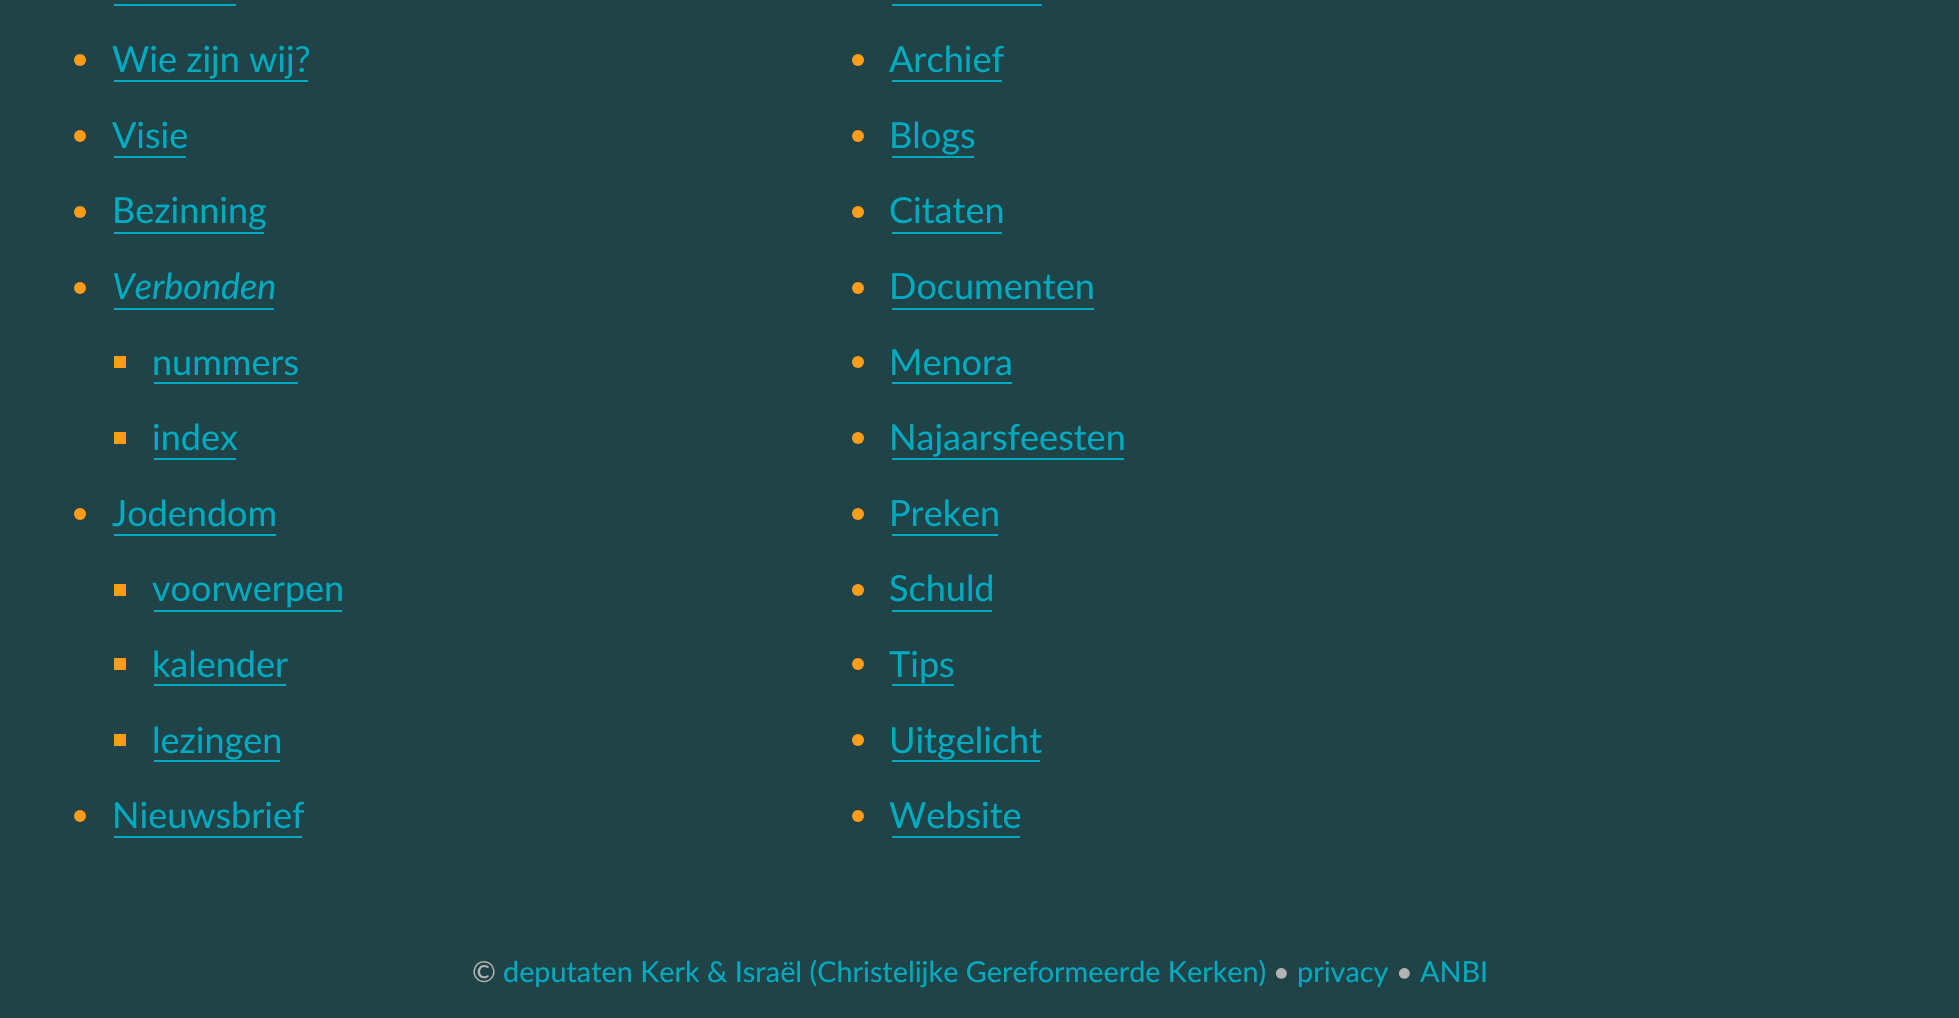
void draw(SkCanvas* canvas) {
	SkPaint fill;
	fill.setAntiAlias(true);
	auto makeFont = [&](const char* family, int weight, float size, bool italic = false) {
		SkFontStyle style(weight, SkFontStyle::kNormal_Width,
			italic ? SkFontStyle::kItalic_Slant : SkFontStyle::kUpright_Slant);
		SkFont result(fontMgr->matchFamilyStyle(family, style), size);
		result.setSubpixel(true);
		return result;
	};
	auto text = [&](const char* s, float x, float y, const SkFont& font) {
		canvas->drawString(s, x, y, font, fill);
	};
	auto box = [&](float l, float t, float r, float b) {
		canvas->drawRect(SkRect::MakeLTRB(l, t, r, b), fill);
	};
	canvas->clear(0xFF1F4347);
	fill.setColor(0xFF00ABC2);
	box(114, 4, 236, 6);
	fill.setColor(0xFFFF9C1A);
	canvas->drawCircle(80, 60, 6, fill);
	fill.setColor(0xFF00ABC2);
	box(114, 80, 308, 82);
	fill.setColor(0xFFFF9C1A);
	canvas->drawCircle(80, 136, 6, fill);
	fill.setColor(0xFF00ABC2);
	box(114, 156, 186, 158);
	fill.setColor(0xFFFF9C1A);
	canvas->drawCircle(80, 212, 6, fill);
	fill.setColor(0xFF00ABC2);
	box(114, 232, 264, 234);
	fill.setColor(0xFFFF9C1A);
	canvas->drawCircle(80, 288, 6, fill);
	fill.setColor(0xFF00ABC2);
	box(114, 308, 274, 310);
	fill.setColor(0xFFFF9C1A);
	box(114, 356, 126, 368);
	fill.setColor(0xFF00ABC2);
	box(154, 382, 298, 384);
	fill.setColor(0xFFFF9C1A);
	box(114, 432, 126, 444);
	fill.setColor(0xFF00ABC2);
	box(154, 458, 236, 460);
	fill.setColor(0xFFFF9C1A);
	canvas->drawCircle(80, 514, 6, fill);
	fill.setColor(0xFF00ABC2);
	box(114, 534, 276, 536);
	fill.setColor(0xFFFF9C1A);
	box(114, 584, 126, 596);
	fill.setColor(0xFF00ABC2);
	box(154, 610, 342, 612);
	fill.setColor(0xFFFF9C1A);
	box(114, 658, 126, 670);
	fill.setColor(0xFF00ABC2);
	box(154, 684, 286, 686);
	fill.setColor(0xFFFF9C1A);
	box(114, 734, 126, 746);
	fill.setColor(0xFF00ABC2);
	box(154, 760, 280, 762);
	fill.setColor(0xFFFF9C1A);
	canvas->drawCircle(80, 816, 6, fill);
	fill.setColor(0xFF00ABC2);
	box(114, 836, 302, 838);
	box(892, 4, 1042, 6);
	fill.setColor(0xFFFF9C1A);
	canvas->drawCircle(858, 60, 6, fill);
	fill.setColor(0xFF00ABC2);
	box(892, 80, 1002, 82);
	fill.setColor(0xFFFF9C1A);
	canvas->drawCircle(858, 136, 6, fill);
	fill.setColor(0xFF00ABC2);
	box(892, 156, 974, 158);
	fill.setColor(0xFFFF9C1A);
	canvas->drawCircle(858, 212, 6, fill);
	fill.setColor(0xFF00ABC2);
	box(892, 232, 1002, 234);
	fill.setColor(0xFFFF9C1A);
	canvas->drawCircle(858, 288, 6, fill);
	fill.setColor(0xFF00ABC2);
	box(892, 308, 1094, 310);
	fill.setColor(0xFFFF9C1A);
	canvas->drawCircle(858, 362, 6, fill);
	fill.setColor(0xFF00ABC2);
	box(892, 382, 1012, 384);
	fill.setColor(0xFFFF9C1A);
	canvas->drawCircle(858, 438, 6, fill);
	fill.setColor(0xFF00ABC2);
	box(892, 458, 1124, 460);
	fill.setColor(0xFFFF9C1A);
	canvas->drawCircle(858, 514, 6, fill);
	fill.setColor(0xFF00ABC2);
	box(892, 534, 998, 536);
	fill.setColor(0xFFFF9C1A);
	canvas->drawCircle(858, 590, 6, fill);
	fill.setColor(0xFF00ABC2);
	box(892, 610, 992, 612);
	fill.setColor(0xFFFF9C1A);
	canvas->drawCircle(858, 664, 6, fill);
	fill.setColor(0xFF00ABC2);
	box(892, 684, 954, 686);
	fill.setColor(0xFFFF9C1A);
	canvas->drawCircle(858, 740, 6, fill);
	fill.setColor(0xFF00ABC2);
	box(892, 760, 1040, 762);
	fill.setColor(0xFFFF9C1A);
	canvas->drawCircle(858, 816, 6, fill);
	fill.setColor(0xFF00ABC2);
	box(892, 836, 1020, 838);
	auto font1 = makeFont("Lato", 400, 36);
	text("Wie zijn wij?", 112, 72, font1);
	text("Visie", 112, 148, font1);
	text("Bezinning", 112, 223, font1);
	auto font2 = makeFont("Lato", 400, 36, true);
	text("Verbonden", 112, 299, font2);
	text("nummers", 152, 375, font1);
	text("index", 152, 450, font1);
	text("Jodendom", 112, 526, font1);
	text("voorwerpen", 152, 601, font1);
	text("kalender", 152, 677, font1);
	text("lezingen", 152, 753, font1);
	text("Nieuwsbrief", 112, 828, font1);
	text("Archief", 889, 72, font1);
	text("Blogs", 889, 148, font1);
	text("Citaten", 889, 223, font1);
	text("Documenten", 889, 299, font1);
	text("Menora", 889, 375, font1);
	text("Najaarsfeesten", 889, 450, font1);
	text("Preken", 889, 526, font1);
	text("Schuld", 889, 601, font1);
	text("Tips", 889, 677, font1);
	text("Uitgelicht", 889, 753, font1);
	text("Website", 889, 828, font1);
	auto font3 = makeFont("Lato", 400, 28.8f);
	fill.setColor(0xFFB3B3B3);
	text("©", 472, 982, font3);
	fill.setColor(0xFF00ABC2);
	text("deputaten Kerk & Israël (Christelijke Gereformeerde Kerken)", 503, 982, font3);
	fill.setColor(0xFFB3B3B3);
	text("•", 1273, 982, font3);
	fill.setColor(0xFF00ABC2);
	text("privacy", 1297, 982, font3);
	fill.setColor(0xFFB3B3B3);
	text("•", 1396, 982, font3);
	fill.setColor(0xFF00ABC2);
	text("ANBI", 1420, 982, font3);
}
